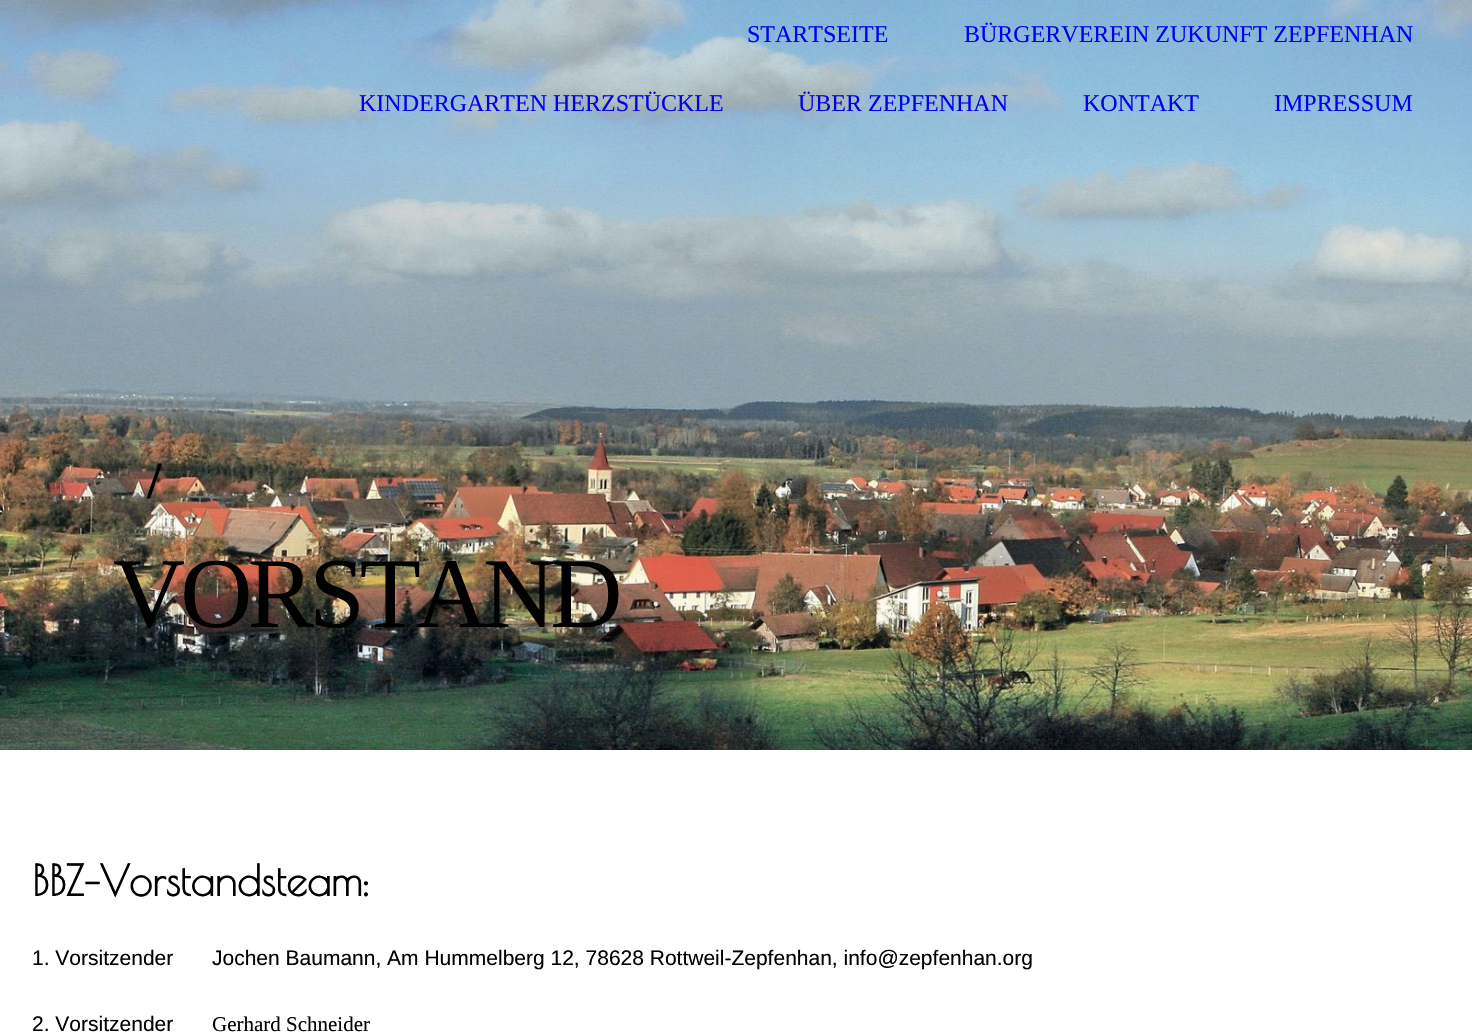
void draw(SkCanvas* canvas) {
	SkPaint fill;
	fill.setAntiAlias(true);
	auto makeFont = [&](const char* family, int weight, float size, bool italic = false) {
		SkFontStyle style(weight, SkFontStyle::kNormal_Width,
			italic ? SkFontStyle::kItalic_Slant : SkFontStyle::kUpright_Slant);
		SkFont result(fontMgr->matchFamilyStyle(family, style), size);
		result.setSubpixel(true);
		return result;
	};
	auto text = [&](const char* s, float x, float y, const SkFont& font) {
		canvas->drawString(s, x, y, font, fill);
	};
	auto spacedText = [&](const char* s, float x, float y, const SkFont& font, const SkPaint& ink, float letter, float word) {
		std::vector<SkGlyphID> glyphs(font.countText(s, strlen(s), SkTextEncoding::kUTF8));
		std::vector<float> xs(glyphs.size());
		font.textToGlyphs(s, strlen(s), SkTextEncoding::kUTF8, glyphs);
		font.getXPos(glyphs, xs, x);
		float extra = 0;
		for (size_t i = 0; i < glyphs.size(); i++) {
			xs[i] += extra;
			extra += letter + word * (glyphs[i] == font.unicharToGlyph(' '));
		}
		canvas->drawTextBlob(SkTextBlob::MakeFromPosHGlyphs(glyphs, xs, y, font), 0, 0, ink);
	};
	auto picture = [&](const char* path, float l, float t, float r, float b) {
		auto image = SkImages::DeferredFromEncodedData(SkData::MakeFromFileName(path));
		canvas->drawImageRect(image, SkRect::MakeLTRB(l, t, r, b), SkSamplingOptions());
	};
	canvas->clear(0xFFFFFFFF);
	picture("image0.png", 0, 0, 1472, 750);
	auto font1 = makeFont("Liberation Serif", 400, 24);
	fill.setColor(0xFF0000EE);
	text("STARTSEITE", 747, 42, font1);
	text("BÜRGERVEREIN ZUKUNFT ZEPFENHAN", 964, 42, font1);
	text("KINDERGARTEN HERZSTÜCKLE", 359, 111, font1);
	text("ÜBER ZEPFENHAN", 798, 111, font1);
	text("KONTAKT", 1083, 111, font1);
	text("IMPRESSUM", 1274, 111, font1);
	auto font2 = makeFont("Liberation Serif", 700, 52);
	fill.setColor(0xFF000000);
	text("/", 147, 498, font2);
	auto font3 = makeFont("Liberation Serif", 400, 100);
	spacedText("VORSTAND", 113, 627, font3, fill, -5, 0);
	auto font4 = makeFont("Poiret One", 700, 42);
	text("BBZ-Vorstandsteam:", 32, 896, font4);
	auto font5 = makeFont("Liberation Sans", 400, 21);
	text("1. Vorsitzender", 32, 965, font5);
	text("Jochen Baumann, Am Hummelberg 12, 78628 Rottweil-Zepfenhan, info@zepfenhan.org", 212, 965, font5);
	text("2. Vorsitzender", 32, 1031, font5);
	auto font6 = makeFont("Liberation Serif", 400, 21);
	text("Gerhard Schneider", 212, 1031, font6);
}
